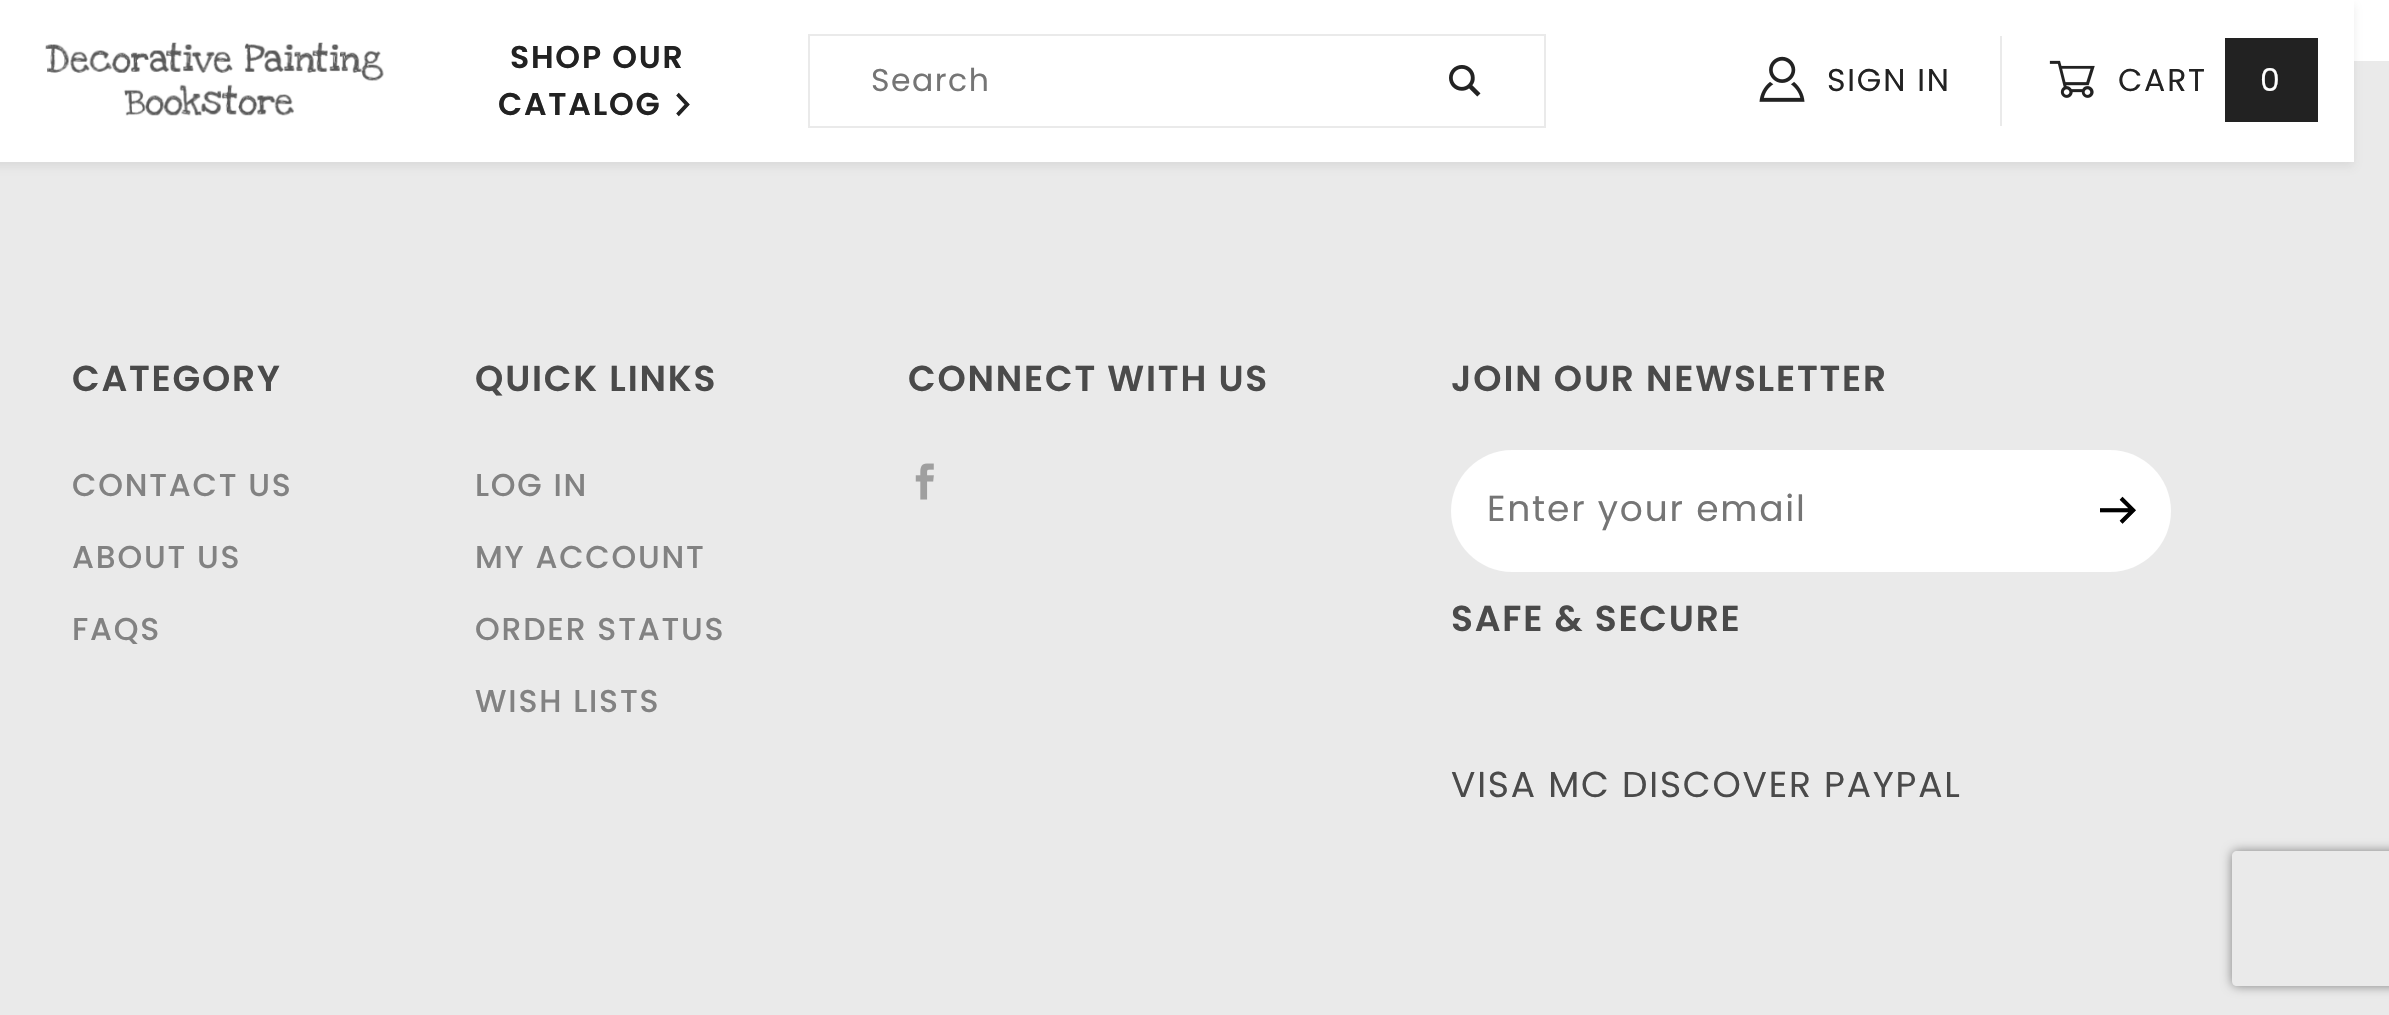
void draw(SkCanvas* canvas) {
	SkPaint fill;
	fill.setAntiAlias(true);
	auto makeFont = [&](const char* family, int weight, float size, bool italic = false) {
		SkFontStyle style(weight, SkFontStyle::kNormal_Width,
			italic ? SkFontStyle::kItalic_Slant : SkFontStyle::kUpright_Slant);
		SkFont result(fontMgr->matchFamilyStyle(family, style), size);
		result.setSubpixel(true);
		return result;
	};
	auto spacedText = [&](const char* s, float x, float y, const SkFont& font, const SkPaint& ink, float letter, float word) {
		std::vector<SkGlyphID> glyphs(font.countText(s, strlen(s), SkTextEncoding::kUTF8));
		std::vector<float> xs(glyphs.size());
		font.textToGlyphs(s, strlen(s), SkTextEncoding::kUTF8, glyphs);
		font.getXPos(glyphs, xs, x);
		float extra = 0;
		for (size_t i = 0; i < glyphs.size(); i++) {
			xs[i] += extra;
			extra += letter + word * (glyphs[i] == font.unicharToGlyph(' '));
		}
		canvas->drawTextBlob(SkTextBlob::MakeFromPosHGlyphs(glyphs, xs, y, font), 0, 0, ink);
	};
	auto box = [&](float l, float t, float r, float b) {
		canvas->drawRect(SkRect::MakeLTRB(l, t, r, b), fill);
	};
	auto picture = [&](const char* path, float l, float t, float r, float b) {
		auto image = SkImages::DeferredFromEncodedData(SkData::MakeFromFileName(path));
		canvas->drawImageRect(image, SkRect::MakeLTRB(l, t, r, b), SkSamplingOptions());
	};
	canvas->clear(0xFFFFFFFF);
	fill.setColor(0xFFEAEAEA);
	box(0, 61, 2389, 1015);
	fill.setColor(0x26808080);
	fill.setMaskFilter(SkMaskFilter::MakeBlur(kNormal_SkBlurStyle, 4.5f));
	canvas->drawRect(SkRect::MakeLTRB(-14, 5, 2354, 167), fill);
	fill.setMaskFilter(nullptr);
	fill.setColor(0xFFFFFFFF);
	box(0, 0, 2354, 162);
	picture("image0.png", 45, 42, 384, 116);
	fill.setStyle(SkPaint::kStroke_Style);
	fill.setStrokeWidth(2);
	fill.setColor(0xFFEAEAEA);
	canvas->drawRect(SkRect::MakeLTRB(809, 35, 1545, 127), fill);
	picture("image1.png", 1449, 65, 1481, 97);
	fill.setStyle(SkPaint::kFill_Style);
	box(2000, 36, 2002, 126);
	picture("image2.png", 1759, 56, 1805, 102);
	picture("image3.png", 2049, 60, 2095, 98);
	fill.setColor(0xFF222222);
	box(2225, 38, 2318, 122);
	picture("image4.png", 915, 463, 934, 500);
	fill.setColor(0xFFFFFFFF);
	canvas->drawPath(SkPathBuilder().moveTo(1512, 450).lineTo(2066, 450).lineTo(2066, 572).lineTo(1512, 572).cubicTo(1478.5f, 572, 1451, 544.5f, 1451, 511).cubicTo(1451, 477.5f, 1478.5f, 450, 1512, 450).close().detach(), fill);
	canvas->drawPath(SkPathBuilder().moveTo(2066, 450).lineTo(2110, 450).cubicTo(2143.5f, 450, 2171, 477.5f, 2171, 511).cubicTo(2171, 544.5f, 2143.5f, 572, 2110, 572).lineTo(2066, 572).close().detach(), fill);
	canvas->save();
	canvas->clipPath(SkPathBuilder(SkPathFillType::kEvenOdd).moveTo(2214, 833).lineTo(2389, 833).lineTo(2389, 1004).lineTo(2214, 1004).close().moveTo(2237, 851).lineTo(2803, 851).cubicTo(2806, 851, 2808, 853, 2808, 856).lineTo(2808, 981).cubicTo(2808, 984, 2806, 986, 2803, 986).lineTo(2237, 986).cubicTo(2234, 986, 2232, 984, 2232, 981).lineTo(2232, 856).cubicTo(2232, 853, 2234, 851, 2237, 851).close().detach(), true);
	fill.setColor(0xFF808080);
	fill.setMaskFilter(SkMaskFilter::MakeBlur(kNormal_SkBlurStyle, 5.5f));
	canvas->drawRoundRect(SkRect::MakeLTRB(2232, 851, 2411, 986), 5, 5, fill);
	fill.setMaskFilter(nullptr);
	canvas->restore();
	auto font1 = makeFont("Poppins", 600, 31.5f);
	fill.setColor(0xFF222222);
	spacedText("SHOP OUR", 510, 68, font1, fill, 1.8f, 0);
	spacedText("CATALOG", 498, 115, font1, fill, 1.8f, 0);
	auto font2 = makeFont("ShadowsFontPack", 400, 24);
	spacedText("3", 671, 115, font2, fill, 1.8f, 0);
	auto font3 = makeFont("Poppins", 400, 31.5f);
	fill.setColor(0xFF757575);
	spacedText("Search", 871, 91, font3, fill, 1.5f, 0);
	fill.setColor(0xFF222222);
	spacedText("SIGN IN", 1827, 91, font3, fill, 1.8f, 0);
	spacedText("CART", 2118, 91, font3, fill, 1.8f, 0);
	fill.setColor(0xFFFFFFFF);
	spacedText("0", 2260, 91, font3, fill, 1.8f, 0);
	auto font4 = makeFont("Poppins", 600, 36);
	fill.setColor(0xFF4A4A4A);
	spacedText("CATEGORY", 72, 391, font4, fill, 1.8f, 0);
	auto font5 = makeFont("Poppins", 500, 31.5f);
	fill.setColor(0xFF828282);
	spacedText("CONTACT US", 72, 496, font5, fill, 1.8f, 0);
	spacedText("ABOUT US", 72, 568, font5, fill, 1.8f, 0);
	spacedText("FAQS", 72, 640, font5, fill, 1.8f, 0);
	fill.setColor(0xFF4A4A4A);
	spacedText("QUICK LINKS", 475, 391, font4, fill, 1.8f, 0);
	fill.setColor(0xFF828282);
	spacedText("LOG IN", 475, 496, font5, fill, 1.8f, 0);
	spacedText("MY ACCOUNT", 475, 568, font5, fill, 1.8f, 0);
	spacedText("ORDER STATUS", 475, 640, font5, fill, 1.8f, 0);
	spacedText("WISH LISTS", 475, 712, font5, fill, 1.8f, 0);
	fill.setColor(0xFF4A4A4A);
	spacedText("CONNECT WITH US", 908, 391, font4, fill, 1.8f, 0);
	spacedText("JOIN OUR NEWSLETTER", 1451, 391, font4, fill, 1.8f, 0);
	auto font6 = makeFont("Poppins", 400, 36);
	fill.setColor(0xFF757575);
	spacedText("Enter your email", 1487, 521, font6, fill, 1.8f, 0);
	auto font7 = makeFont("ShadowsFontPack", 400, 36);
	fill.setColor(0xFF000000);
	spacedText(";", 2100, 526, font7, fill, 1.8f, 0);
	fill.setColor(0xFF4A4A4A);
	spacedText("SAFE & SECURE", 1451, 631, font4, fill, 1.8f, 0);
	spacedText("VISA MC DISCOVER PAYPAL", 1451, 797, font6, fill, 1.8f, 0);
}
